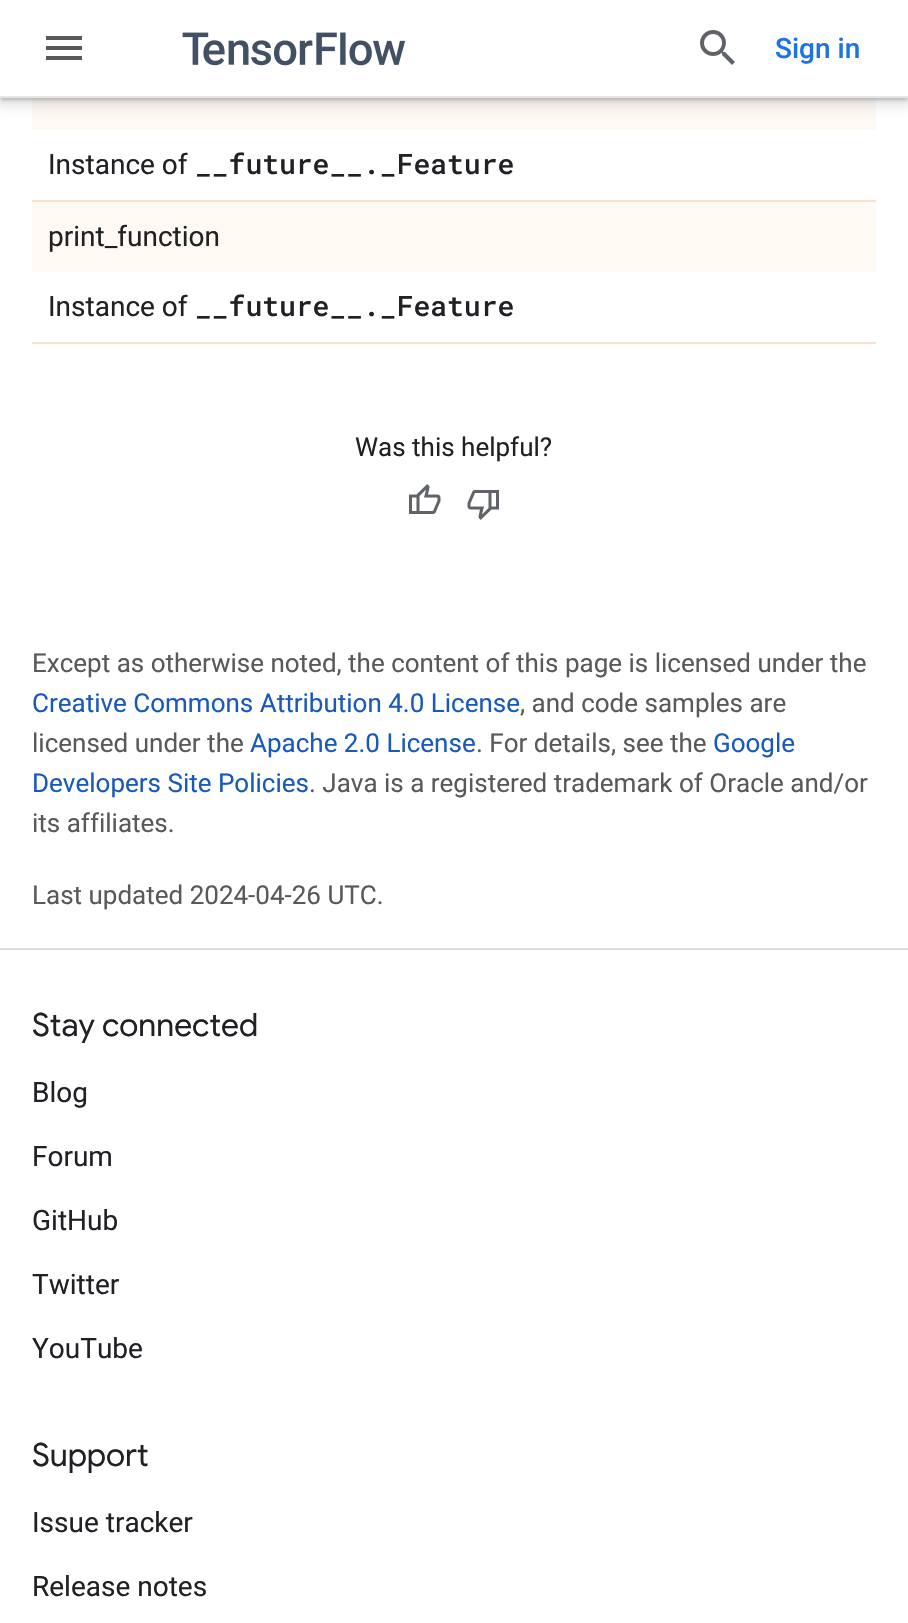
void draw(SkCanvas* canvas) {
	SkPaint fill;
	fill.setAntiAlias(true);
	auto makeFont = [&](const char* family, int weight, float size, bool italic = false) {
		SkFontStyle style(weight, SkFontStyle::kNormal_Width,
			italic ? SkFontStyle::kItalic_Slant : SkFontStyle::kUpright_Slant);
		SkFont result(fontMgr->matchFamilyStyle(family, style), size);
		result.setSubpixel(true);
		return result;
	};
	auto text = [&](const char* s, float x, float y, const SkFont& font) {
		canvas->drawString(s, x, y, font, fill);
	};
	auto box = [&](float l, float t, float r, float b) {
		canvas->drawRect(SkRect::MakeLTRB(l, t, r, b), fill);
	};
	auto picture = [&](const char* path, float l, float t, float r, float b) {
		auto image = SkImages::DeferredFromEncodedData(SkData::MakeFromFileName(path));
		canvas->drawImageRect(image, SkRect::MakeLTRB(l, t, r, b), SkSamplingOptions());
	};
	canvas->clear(0xFFFFFFFF);
	fill.setColor(0xFFFFF9F4);
	box(32, 98, 876, 130);
	fill.setColor(0x263C4043);
	fill.setMaskFilter(SkMaskFilter::MakeBlur(kNormal_SkBlurStyle, 6));
	canvas->drawRect(SkRect::MakeLTRB(-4, -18, 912, 106), fill);
	fill.setMaskFilter(nullptr);
	fill.setColor(0x4D3C4043);
	fill.setMaskFilter(SkMaskFilter::MakeBlur(kNormal_SkBlurStyle, 2));
	canvas->drawRect(SkRect::MakeLTRB(0, -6, 908, 100), fill);
	fill.setMaskFilter(nullptr);
	fill.setColor(0xFFFFFFFF);
	box(0, 0, 908, 96);
	fill.setColor(0xFFE6E6E6);
	box(0, 96, 908, 98);
	fill.setColor(0xFF595959);
	canvas->drawPath(SkPathBuilder().moveTo(46, 36).lineTo(82, 36).lineTo(82, 40).lineTo(46, 40).close().moveTo(46, 50).lineTo(46, 46).lineTo(82, 46).lineTo(82, 50).close().moveTo(46, 60).lineTo(46, 56).lineTo(82, 56).lineTo(82, 60).close().detach(), fill);
	picture("image0.png", 182, 32, 405, 66);
	picture("image1.png", 700, 30, 735, 65);
	fill.setColor(0xFFFEDFC8);
	box(32, 200, 876, 202);
	box(32, 342, 876, 344);
	fill.setColor(0xFFFFF9F4);
	box(32, 202, 876, 272);
	picture("image2.png", 409, 484, 441, 514);
	picture("image3.png", 467, 490, 499, 520);
	fill.setColor(0xFFDADCE0);
	box(0, 948, 908, 950);
	auto font1 = makeFont("Roboto", 500, 28);
	fill.setColor(0xFF1A73E8);
	text("Sign in", 775, 58, font1);
	auto font2 = makeFont("Roboto", 400, 28);
	fill.setColor(0xFF202124);
	text("Instance of", 48, 174, font2);
	auto font3 = makeFont("Roboto Mono", 500, 28);
	text("__future__._Feature", 195, 174, font3);
	text("print_function", 48, 246, font2);
	text("Instance of", 48, 316, font2);
	text("__future__._Feature", 195, 316, font3);
	auto font4 = makeFont("Roboto", 400, 26);
	text("Was this helpful?", 355, 456, font4);
	fill.setColor(0xFF595959);
	text("Except as otherwise noted, the content of this page is licensed under the", 32, 672, font4);
	fill.setColor(0xFF185ABC);
	text("Creative Commons Attribution 4.0 License", 32, 712, font4);
	fill.setColor(0xFF595959);
	text(", and code samples are", 520, 712, font4);
	text("licensed under the", 32, 752, font4);
	fill.setColor(0xFF185ABC);
	text("Apache 2.0 License", 250, 752, font4);
	fill.setColor(0xFF595959);
	text(". For details, see the", 476, 752, font4);
	fill.setColor(0xFF185ABC);
	text("Google", 713, 752, font4);
	text("Developers Site Policies", 32, 792, font4);
	fill.setColor(0xFF595959);
	text(". Java is a registered trademark of Oracle and/or", 309, 792, font4);
	text("its affiliates.", 32, 832, font4);
	text("Last updated 2024-04-26 UTC.", 32, 904, font4);
	auto font5 = makeFont("Google Sans", 400, 32);
	fill.setColor(0xFF202124);
	text("Stay connected", 32, 1036, font5);
	text("Blog", 32, 1102, font2);
	text("Forum", 32, 1166, font2);
	text("GitHub", 32, 1230, font2);
	text("Twitter", 32, 1294, font2);
	text("YouTube", 32, 1358, font2);
	text("Support", 32, 1466, font5);
	text("Issue tracker", 32, 1532, font2);
	text("Release notes", 32, 1596, font2);
}
